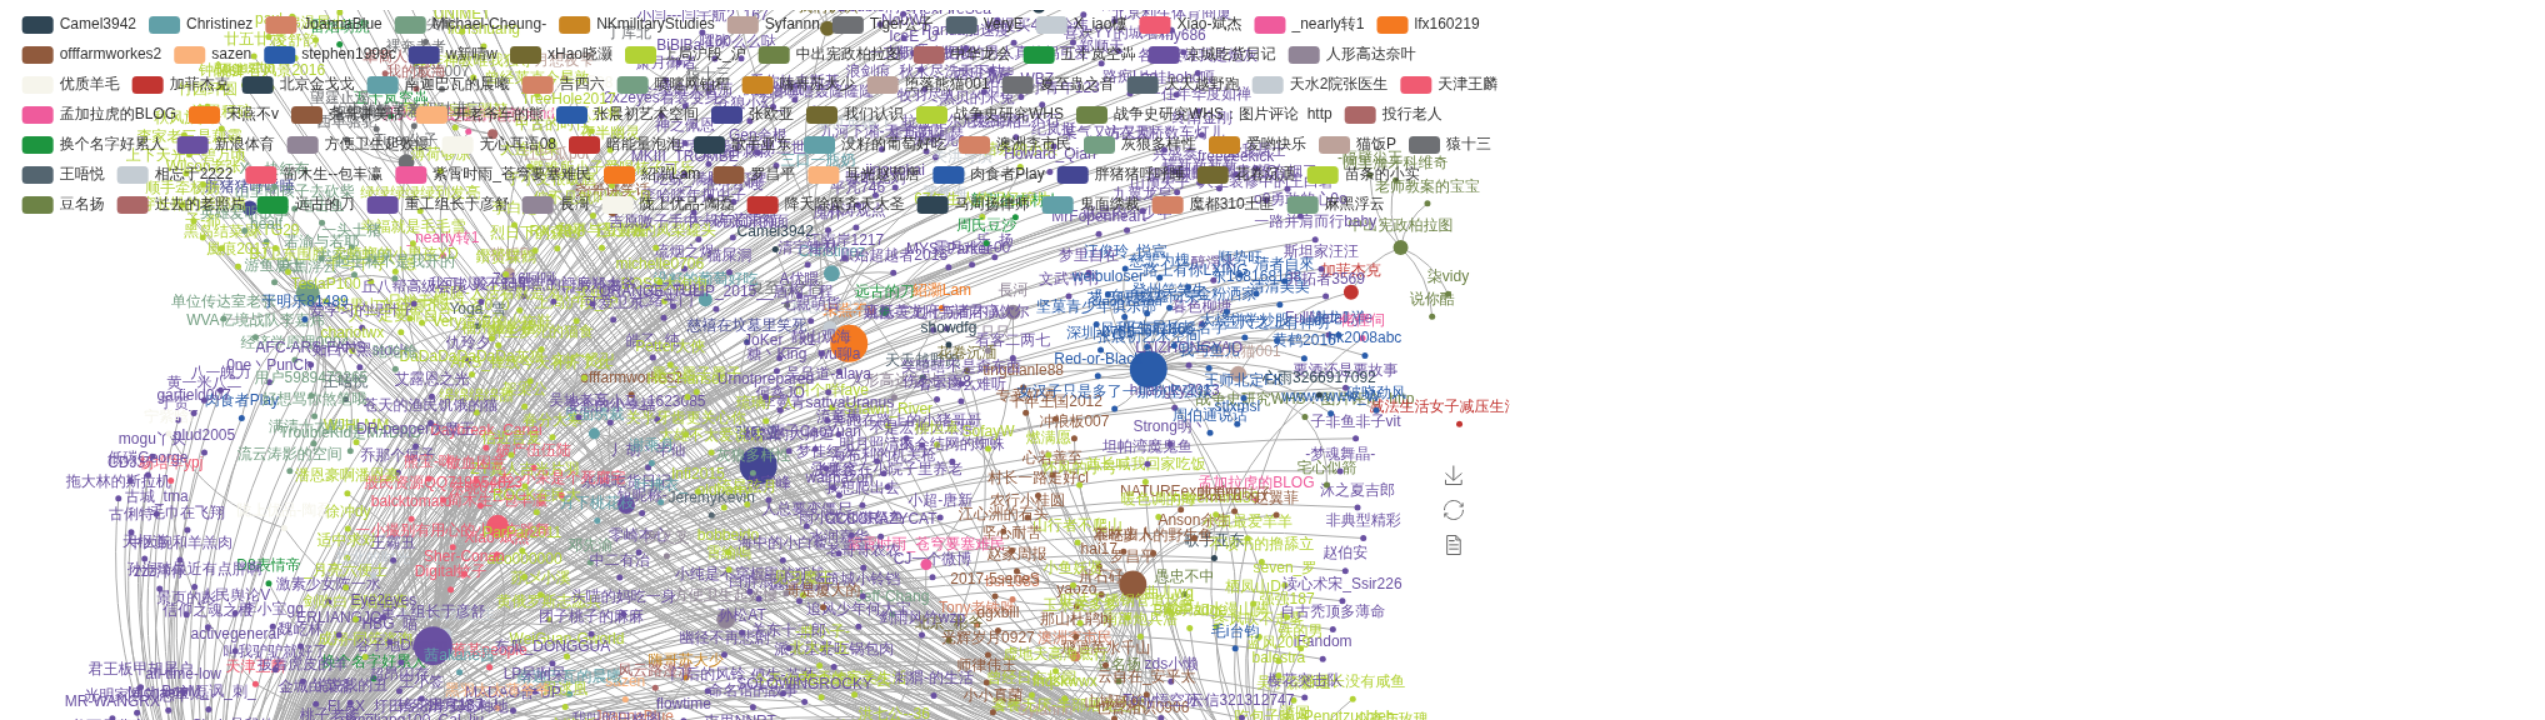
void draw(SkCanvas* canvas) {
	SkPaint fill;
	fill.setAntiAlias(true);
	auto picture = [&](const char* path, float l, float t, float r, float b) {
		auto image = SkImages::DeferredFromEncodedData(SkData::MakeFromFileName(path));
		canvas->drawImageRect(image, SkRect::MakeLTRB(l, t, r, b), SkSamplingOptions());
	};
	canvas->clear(0xFFFFFFFF);
	picture("image0.png", 21, 10, 1510, 720);
}
